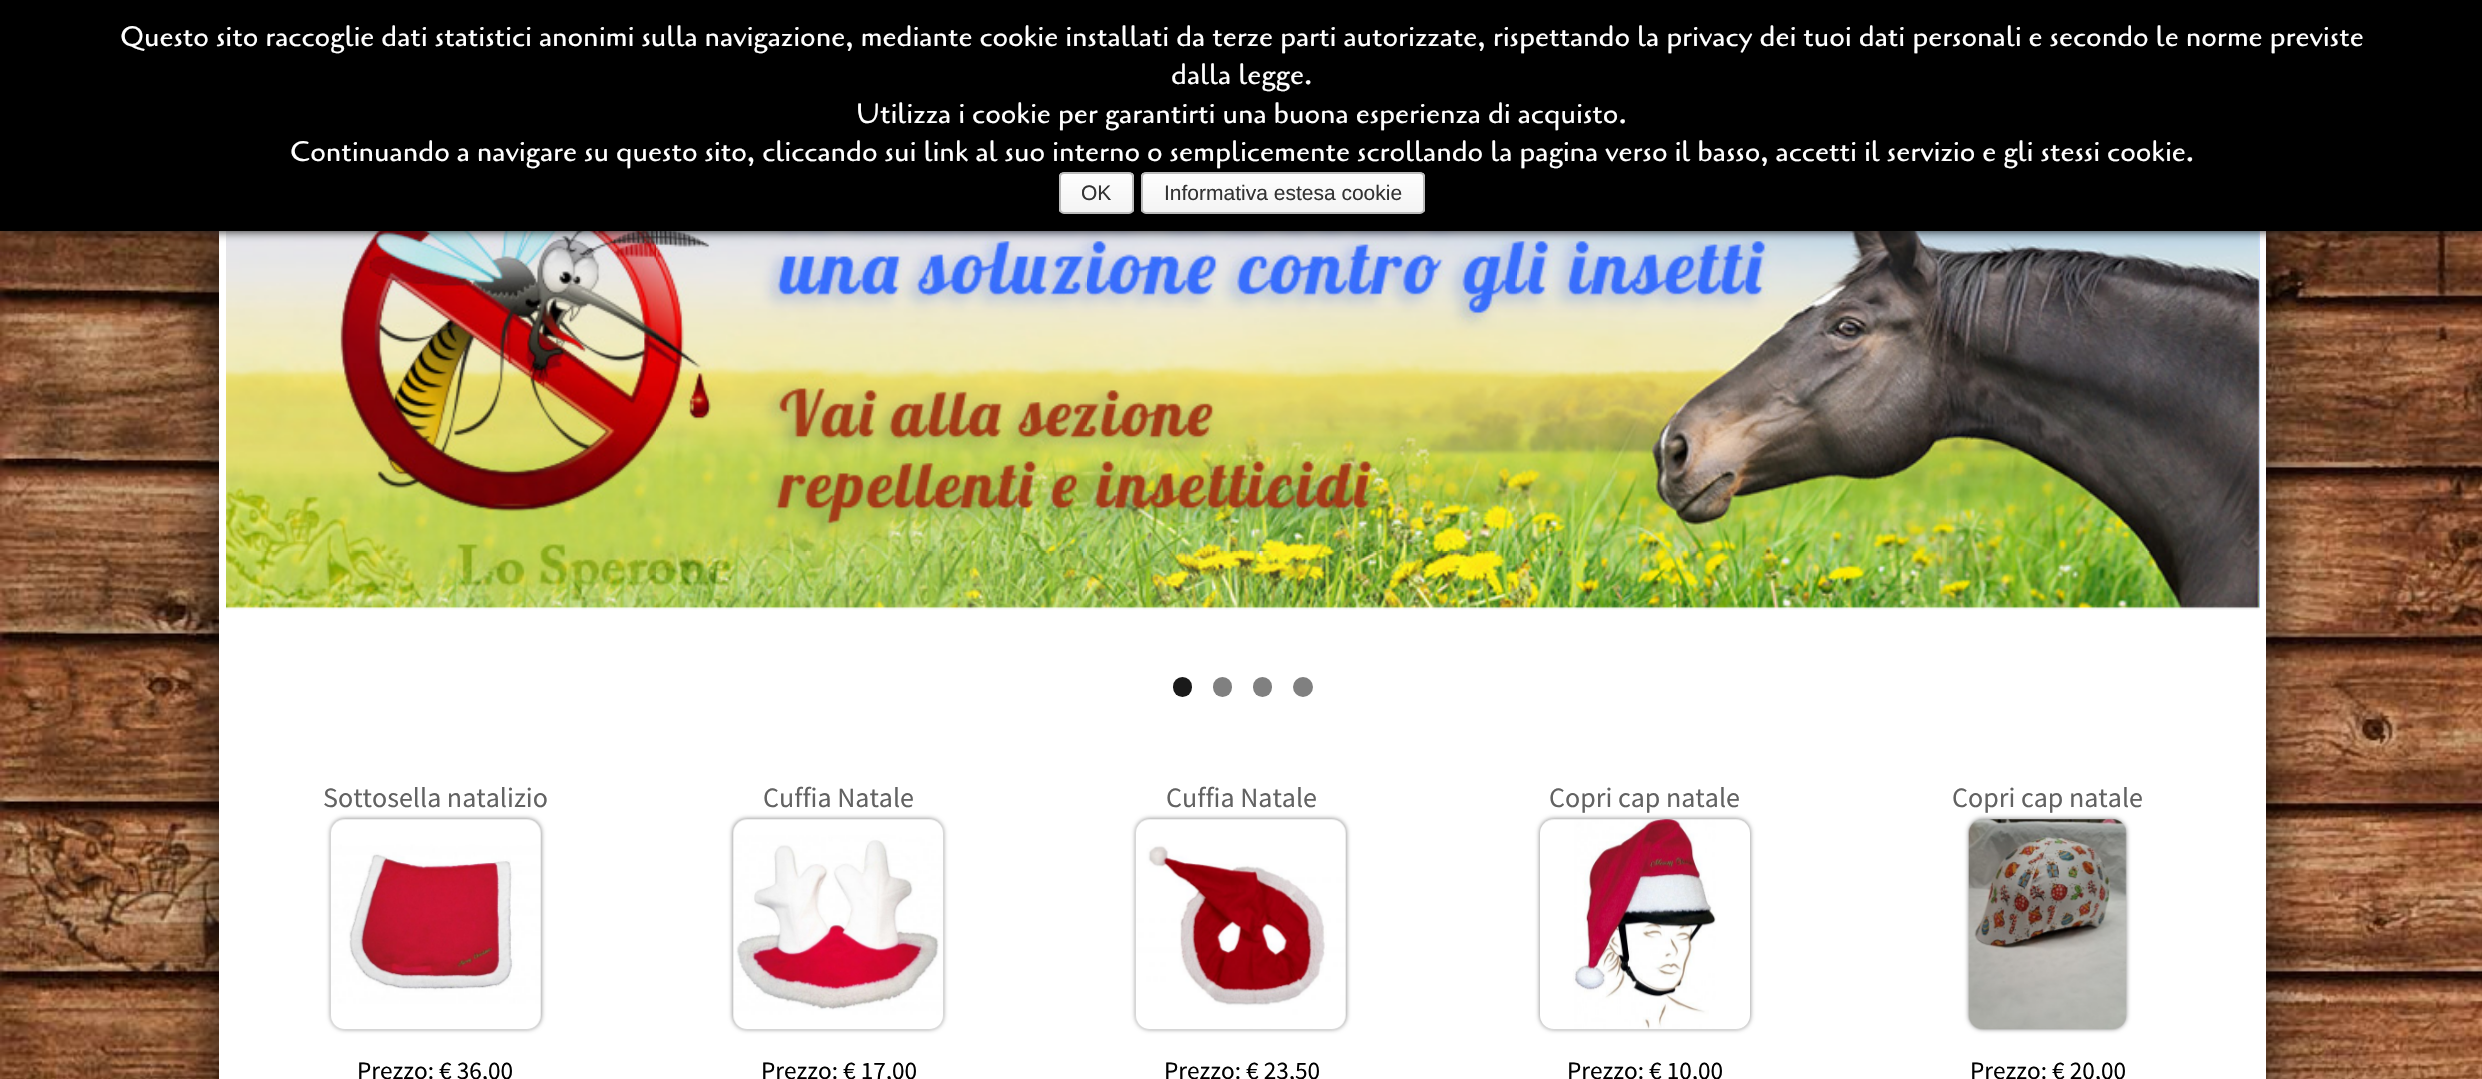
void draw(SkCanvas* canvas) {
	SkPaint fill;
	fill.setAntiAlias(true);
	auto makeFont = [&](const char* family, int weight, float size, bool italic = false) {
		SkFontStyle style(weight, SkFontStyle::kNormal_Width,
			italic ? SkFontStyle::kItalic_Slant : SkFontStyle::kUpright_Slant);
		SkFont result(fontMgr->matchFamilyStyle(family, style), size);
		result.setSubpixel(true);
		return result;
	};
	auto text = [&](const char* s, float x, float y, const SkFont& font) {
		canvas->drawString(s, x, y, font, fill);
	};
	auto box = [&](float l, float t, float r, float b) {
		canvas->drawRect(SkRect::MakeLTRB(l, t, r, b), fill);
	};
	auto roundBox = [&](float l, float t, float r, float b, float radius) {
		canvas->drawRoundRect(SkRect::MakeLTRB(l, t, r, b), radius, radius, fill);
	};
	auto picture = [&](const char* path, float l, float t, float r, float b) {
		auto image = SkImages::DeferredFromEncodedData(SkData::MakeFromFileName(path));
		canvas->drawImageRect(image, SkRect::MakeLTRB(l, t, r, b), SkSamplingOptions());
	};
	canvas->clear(0xFFFFFFFF);
	picture("image0.png", 0, 231, 2482, 1079);
	fill.setColor(0xCC000000);
	fill.setMaskFilter(SkMaskFilter::MakeBlur(kNormal_SkBlurStyle, 26));
	canvas->drawRect(SkRect::MakeLTRB(219, -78, 2266, 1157), fill);
	fill.setMaskFilter(nullptr);
	fill.setColor(0xFFFFFFFF);
	box(219, 231, 2266, 1079);
	picture("image1.png", 226, 231, 2260, 610);
	picture("image2.png", 2258, 231, 2260, 609);
	fill.setColor(0xFF1A1717);
	fill.setMaskFilter(SkMaskFilter::MakeBlur(kNormal_SkBlurStyle, 5));
	canvas->drawRect(SkRect::MakeLTRB(0, 0, 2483, 231), fill);
	fill.setMaskFilter(nullptr);
	fill.setColor(0xFF000000);
	box(0, 0, 2482, 231);
	canvas->save();
	canvas->clipPath(SkPathBuilder().moveTo(1064, 172).lineTo(1129, 172).cubicTo(1132, 172, 1134, 174, 1134, 177).lineTo(1134, 209).cubicTo(1134, 212, 1132, 214, 1129, 214).lineTo(1064, 214).cubicTo(1061, 214, 1059, 212, 1059, 209).lineTo(1059, 177).cubicTo(1059, 174, 1061, 172, 1064, 172).close().detach(), true);
	{
		const SkColor colors[] = {0xFFFEFEFE, 0xFFF4F4F4};
		const float stops[] = {0, 1};
		const SkPoint ends[] = {{1096, 173}, {1096, 212}};
		fill.setShader(SkGradientShader::MakeLinear(ends, colors, stops, 2, SkTileMode::kClamp));
		fill.setAlpha(255);
	}
	box(1059, 173, 1134, 212);
	canvas->restore();
	fill.setStyle(SkPaint::kStroke_Style);
	fill.setStrokeWidth(2);
	fill.setShader(nullptr);
	fill.setColor(0xFFBBBBBB);
	canvas->drawRoundRect(SkRect::MakeLTRB(1060, 173, 1133, 213), 4, 4, fill);
	canvas->save();
	canvas->clipPath(SkPathBuilder().moveTo(1146, 172).lineTo(1420, 172).cubicTo(1423, 172, 1425, 174, 1425, 177).lineTo(1425, 209).cubicTo(1425, 212, 1423, 214, 1420, 214).lineTo(1146, 214).cubicTo(1143, 214, 1141, 212, 1141, 209).lineTo(1141, 177).cubicTo(1141, 174, 1143, 172, 1146, 172).close().detach(), true);
	fill.setStyle(SkPaint::kFill_Style);
	{
		const SkColor colors[] = {0xFFFEFEFE, 0xFFF4F4F4};
		const float stops[] = {0, 1};
		const SkPoint ends[] = {{1283, 173}, {1283, 212}};
		fill.setShader(SkGradientShader::MakeLinear(ends, colors, stops, 2, SkTileMode::kClamp));
		fill.setAlpha(255);
	}
	box(1141, 173, 1425, 212);
	canvas->restore();
	fill.setStyle(SkPaint::kStroke_Style);
	fill.setShader(nullptr);
	fill.setColor(0xFFBBBBBB);
	canvas->drawRoundRect(SkRect::MakeLTRB(1142, 173, 1424, 213), 4, 4, fill);
	fill.setStyle(SkPaint::kFill_Style);
	fill.setColor(0xFF1A1A1A);
	roundBox(1173, 677, 1192, 697, 9.5f);
	fill.setColor(0xFF808080);
	roundBox(1213, 677, 1232, 697, 9.5f);
	roundBox(1253, 677, 1272, 697, 9.5f);
	canvas->drawCircle(1303, 687, 10, fill);
	fill.setColor(0x80000000);
	fill.setMaskFilter(SkMaskFilter::MakeBlur(kNormal_SkBlurStyle, 2.5f));
	canvas->drawRoundRect(SkRect::MakeLTRB(331, 819, 541, 1029), 14, 14, fill);
	fill.setMaskFilter(nullptr);
	picture("image3.png", 330, 819, 541, 1030);
	fill.setMaskFilter(SkMaskFilter::MakeBlur(kNormal_SkBlurStyle, 2.5f));
	canvas->drawRoundRect(SkRect::MakeLTRB(733, 819, 943, 1029), 14, 14, fill);
	fill.setMaskFilter(nullptr);
	picture("image4.png", 733, 819, 944, 1030);
	fill.setMaskFilter(SkMaskFilter::MakeBlur(kNormal_SkBlurStyle, 2.5f));
	canvas->drawRoundRect(SkRect::MakeLTRB(1136, 819, 1346, 1029), 14, 14, fill);
	fill.setMaskFilter(nullptr);
	picture("image5.png", 1135, 819, 1346, 1030);
	fill.setMaskFilter(SkMaskFilter::MakeBlur(kNormal_SkBlurStyle, 2.5f));
	canvas->drawRoundRect(SkRect::MakeLTRB(1540, 819, 1750, 1029), 14, 14, fill);
	fill.setMaskFilter(nullptr);
	picture("image6.png", 1540, 819, 1750, 1030);
	fill.setMaskFilter(SkMaskFilter::MakeBlur(kNormal_SkBlurStyle, 2.5f));
	canvas->drawRoundRect(SkRect::MakeLTRB(1969, 819, 2126, 1029), 14, 14, fill);
	fill.setMaskFilter(nullptr);
	picture("image7.png", 1968, 819, 2127, 1030);
	auto font1 = makeFont("Cagliostro", 400, 28);
	fill.setColor(0xFFFFFFFF);
	text("Questo sito raccoglie dati statistici anonimi sulla navigazione, mediante cookie installati da terze parti autorizzate, rispettando la privacy dei tuoi dati personali e secondo le norme previste", 120, 46, font1);
	text("dalla legge.", 1171, 84, font1);
	text("Utilizza i cookie per garantirti una buona esperienza di acquisto.", 856, 123, font1);
	text("Continuando a navigare su questo sito, cliccando sui link al suo interno o semplicemente scrollando la pagina verso il basso, accetti il servizio e gli stessi cookie.", 290, 161, font1);
	auto font2 = makeFont("Liberation Sans", 400, 21);
	fill.setColor(0xFF333333);
	text("OK", 1081, 200, font2);
	text("Informativa estesa cookie", 1164, 200, font2);
	auto font3 = makeFont("Source Sans Pro", 400, 28);
	fill.setColor(0xFF626262);
	text("Sottosella natalizio", 323, 807, font3);
	auto font4 = makeFont("Source Sans Pro", 400, 25.25f);
	fill.setColor(0xFF000000);
	text("Prezzo: € 36,00", 357, 1079, font4);
	fill.setColor(0xFF626262);
	text("Cuffia Natale", 763, 807, font3);
	fill.setColor(0xFF000000);
	text("Prezzo: € 17,00", 761, 1079, font4);
	fill.setColor(0xFF626262);
	text("Cuffia Natale", 1166, 807, font3);
	fill.setColor(0xFF000000);
	text("Prezzo: € 23,50", 1164, 1079, font4);
	fill.setColor(0xFF626262);
	text("Copri cap natale", 1549, 807, font3);
	fill.setColor(0xFF000000);
	text("Prezzo: € 10,00", 1567, 1079, font4);
	fill.setColor(0xFF626262);
	text("Copri cap natale", 1952, 807, font3);
	fill.setColor(0xFF000000);
	text("Prezzo: € 20,00", 1970, 1079, font4);
}
